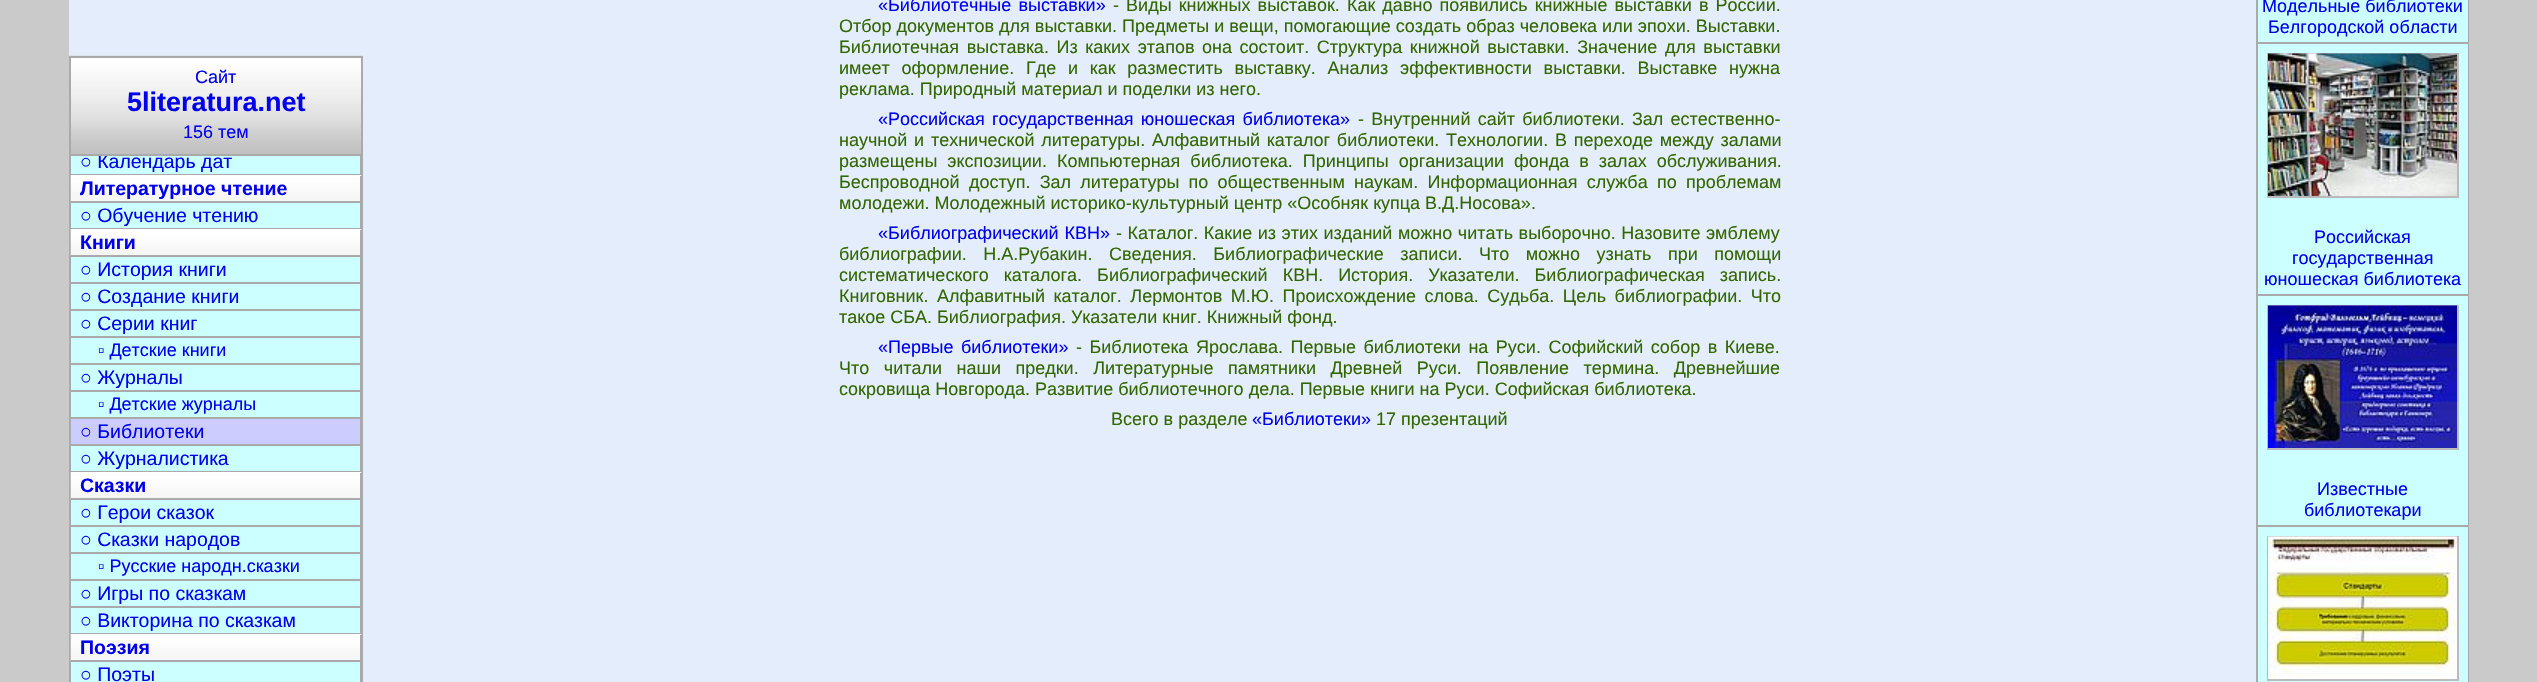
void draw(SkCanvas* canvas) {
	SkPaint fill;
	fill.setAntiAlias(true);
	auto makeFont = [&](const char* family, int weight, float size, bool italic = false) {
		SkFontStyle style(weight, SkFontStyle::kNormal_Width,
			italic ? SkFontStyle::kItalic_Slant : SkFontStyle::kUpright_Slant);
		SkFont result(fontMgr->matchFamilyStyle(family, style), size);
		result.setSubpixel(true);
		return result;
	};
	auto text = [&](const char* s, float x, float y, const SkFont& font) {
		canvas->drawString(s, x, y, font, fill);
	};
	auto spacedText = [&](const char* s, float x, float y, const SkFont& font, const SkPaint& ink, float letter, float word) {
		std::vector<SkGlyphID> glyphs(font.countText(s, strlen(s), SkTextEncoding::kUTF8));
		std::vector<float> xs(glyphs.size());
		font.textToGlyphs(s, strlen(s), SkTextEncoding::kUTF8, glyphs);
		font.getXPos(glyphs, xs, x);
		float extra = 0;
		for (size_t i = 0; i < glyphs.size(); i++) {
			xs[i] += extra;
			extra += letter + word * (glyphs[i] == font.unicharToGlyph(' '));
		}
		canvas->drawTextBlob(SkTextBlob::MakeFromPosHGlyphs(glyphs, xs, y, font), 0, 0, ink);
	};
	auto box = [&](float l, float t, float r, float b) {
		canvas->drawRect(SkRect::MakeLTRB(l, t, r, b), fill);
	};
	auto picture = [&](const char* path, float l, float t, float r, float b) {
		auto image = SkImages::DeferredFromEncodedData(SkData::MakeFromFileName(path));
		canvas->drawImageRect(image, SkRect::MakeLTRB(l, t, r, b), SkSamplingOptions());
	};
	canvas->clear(0xFFCACACA);
	fill.setColor(0xFFE3EDFB);
	box(69, 0, 2256, 682);
	picture("image0.png", 69, 55, 363, 154);
	fill.setStyle(SkPaint::kStroke_Style);
	fill.setStrokeWidth(2);
	fill.setColor(0xFFAAAAAA);
	canvas->drawRect(SkRect::MakeLTRB(70, 57, 362, 155), fill);
	canvas->drawRect(SkRect::MakeLTRB(2257, -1, 2468, 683), fill);
	fill.setStyle(SkPaint::kFill_Style);
	fill.setColor(0xFFCCFFFF);
	box(2258, 0, 2468, 42);
	box(2258, 44, 2468, 294);
	fill.setColor(0xFFAAAAAA);
	box(2258, 42, 2468, 44);
	fill.setStyle(SkPaint::kStroke_Style);
	fill.setColor(0xFFBBBBBB);
	canvas->drawRect(SkRect::MakeLTRB(2268, 54, 2458, 197), fill);
	picture("image1.png", 2268, 53, 2457, 196);
	fill.setStyle(SkPaint::kFill_Style);
	fill.setColor(0xFFCCFFFF);
	box(2258, 296, 2468, 525);
	fill.setColor(0xFFAAAAAA);
	box(2258, 294, 2468, 296);
	fill.setStyle(SkPaint::kStroke_Style);
	fill.setColor(0xFFBBBBBB);
	canvas->drawRect(SkRect::MakeLTRB(2268, 306, 2458, 449), fill);
	picture("image2.png", 2268, 305, 2457, 448);
	fill.setStyle(SkPaint::kFill_Style);
	fill.setColor(0xFFCCFFFF);
	box(2258, 527, 2468, 682);
	fill.setColor(0xFFAAAAAA);
	box(2258, 525, 2468, 527);
	fill.setStyle(SkPaint::kStroke_Style);
	fill.setColor(0xFFBBBBBB);
	canvas->drawRect(SkRect::MakeLTRB(2268, 537, 2458, 680), fill);
	picture("image3.png", 2268, 536, 2457, 679);
	fill.setColor(0xFFAAAAAA);
	canvas->drawRect(SkRect::MakeLTRB(70, 156, 362, 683), fill);
	fill.setStyle(SkPaint::kFill_Style);
	fill.setColor(0xFFCCFFFF);
	box(71, 156, 360, 174);
	fill.setColor(0xFFAAAAAA);
	box(360, 156, 361, 176);
	box(71, 174, 362, 176);
	picture("image4.png", 70, 175, 362, 202);
	box(360, 176, 362, 203);
	box(71, 201, 362, 203);
	fill.setColor(0xFFCCFFFF);
	box(71, 203, 360, 228);
	fill.setColor(0xFFAAAAAA);
	box(360, 203, 361, 230);
	box(71, 228, 362, 230);
	picture("image4.png", 70, 229, 362, 256);
	box(360, 230, 362, 257);
	box(71, 255, 362, 257);
	fill.setColor(0xFFCCFFFF);
	box(71, 257, 360, 282);
	fill.setColor(0xFFAAAAAA);
	box(360, 257, 361, 473);
	box(71, 282, 362, 284);
	fill.setColor(0xFFCCFFFF);
	box(71, 284, 360, 309);
	fill.setColor(0xFFAAAAAA);
	box(71, 309, 362, 311);
	fill.setColor(0xFFCCFFFF);
	box(71, 311, 360, 336);
	fill.setColor(0xFFAAAAAA);
	box(71, 336, 362, 338);
	fill.setColor(0xFFCCFFFF);
	box(71, 338, 360, 363);
	fill.setColor(0xFFAAAAAA);
	box(71, 363, 362, 365);
	fill.setColor(0xFFCCFFFF);
	box(71, 365, 360, 390);
	fill.setColor(0xFFAAAAAA);
	box(71, 390, 362, 392);
	fill.setColor(0xFFCCFFFF);
	box(71, 392, 360, 417);
	fill.setColor(0xFFAAAAAA);
	box(71, 417, 362, 419);
	fill.setColor(0xFFCCCCFF);
	box(71, 419, 360, 444);
	fill.setColor(0xFFAAAAAA);
	box(71, 444, 362, 446);
	fill.setColor(0xFFCCFFFF);
	box(71, 446, 360, 471);
	fill.setColor(0xFFAAAAAA);
	box(71, 471, 362, 473);
	picture("image4.png", 70, 472, 362, 499);
	box(360, 473, 362, 500);
	box(71, 498, 362, 500);
	fill.setColor(0xFFCCFFFF);
	box(71, 500, 360, 525);
	fill.setColor(0xFFAAAAAA);
	box(360, 500, 361, 635);
	box(71, 525, 362, 527);
	fill.setColor(0xFFCCFFFF);
	box(71, 527, 360, 552);
	fill.setColor(0xFFAAAAAA);
	box(71, 552, 362, 554);
	fill.setColor(0xFFCCFFFF);
	box(71, 554, 360, 579);
	fill.setColor(0xFFAAAAAA);
	box(71, 579, 362, 581);
	fill.setColor(0xFFCCFFFF);
	box(71, 581, 360, 606);
	fill.setColor(0xFFAAAAAA);
	box(71, 606, 362, 608);
	fill.setColor(0xFFCCFFFF);
	box(71, 608, 360, 633);
	fill.setColor(0xFFAAAAAA);
	box(71, 633, 362, 635);
	picture("image4.png", 70, 634, 362, 661);
	box(360, 635, 362, 662);
	box(71, 660, 362, 662);
	fill.setColor(0xFFCCFFFF);
	box(71, 662, 360, 682);
	fill.setColor(0xFFAAAAAA);
	box(360, 662, 361, 682);
	auto font1 = makeFont("Liberation Sans", 400, 18);
	fill.setColor(0xFF0000EE);
	text("Сайт", 195, 83, font1);
	auto font2 = makeFont("Liberation Sans", 700, 27);
	text("5literatura.net", 127, 111, font2);
	text("156 тем", 183, 138, font1);
	spacedText("«Библиотечные выставки»", 878, 11, font1, fill, 0, 2.1f);
	fill.setColor(0xFF336600);
	spacedText("- Виды книжных выставок. Как давно появились книжные выставки в России.", 1113, 11, font1, fill, 0, 2.1f);
	text("Отбор документов для выставки. Предметы и вещи, помогающие создать образ человека или эпохи. Выставки.", 839, 32, font1);
	spacedText("Библиотечная выставка. Из каких этапов она состоит. Структура книжной выставки. Значение для выставки", 839, 53, font1, fill, 0, 2.6f);
	spacedText("имеет оформление. Где и как разместить выставку. Анализ эффективности выставки. Выставке нужна", 839, 74, font1, fill, 0, 6.75f);
	text("реклама. Природный материал и поделки из него.", 839, 95, font1);
	fill.setColor(0xFF0000EE);
	spacedText("«Российская государственная юношеская библиотека»", 878, 125, font1, fill, 0, 2.25f);
	fill.setColor(0xFF336600);
	spacedText("- Внутренний сайт библиотеки. Зал естественно-", 1358, 125, font1, fill, 0, 2.25f);
	spacedText("научной и технической литературы. Алфавитный каталог библиотеки. Технологии. В переходе между залами", 839, 146, font1, fill, 0, 1.75f);
	spacedText("размещены экспозиции. Компьютерная библиотека. Принципы организации фонда в залах обслуживания.", 839, 167, font1, fill, 0, 5);
	spacedText("Беспроводной доступ. Зал литературы по общественным наукам. Информационная служба по проблемам", 839, 188, font1, fill, 0, 4.25f);
	text("молодежи. Молодежный историко-культурный центр «Особняк купца В.Д.Носова».", 839, 209, font1);
	fill.setColor(0xFF0000EE);
	spacedText("«Библиографический КВН»", 878, 239, font1, fill, 0, 1);
	fill.setColor(0xFF336600);
	spacedText("- Каталог. Какие из этих изданий можно читать выборочно. Назовите эмблему", 1116, 239, font1, fill, 0, 0.5f);
	spacedText("библиографии. Н.А.Рубакин. Сведения. Библиографические записи. Что можно узнать при помощи", 839, 260, font1, fill, 0, 11.5f);
	spacedText("систематического каталога. Библиографический КВН. История. Указатели. Библиографическая запись.", 839, 281, font1, fill, 0, 10);
	spacedText("Книговник. Алфавитный каталог. Лермонтов М.Ю. Происхождение слова. Судьба. Цель библиографии. Что", 839, 302, font1, fill, 0, 3.5f);
	text("такое СБА. Библиография. Указатели книг. Книжный фонд.", 839, 323, font1);
	fill.setColor(0xFF0000EE);
	spacedText("«Первые библиотеки»", 878, 353, font1, fill, 0, 2.5f);
	fill.setColor(0xFF336600);
	spacedText("- Библиотека Ярослава. Первые библиотеки на Руси. Софийский собор в Киеве.", 1076, 353, font1, fill, 0, 2.5f);
	spacedText("Что читали наши предки. Литературные памятники Древней Руси. Появление термина. Древнейшие", 839, 374, font1, fill, 0, 9.5f);
	text("сокровища Новгорода. Развитие библиотечного дела. Первые книги на Руси. Софийская библиотека.", 839, 395, font1);
	text("Всего в разделе", 1111, 425, font1);
	fill.setColor(0xFF0000EE);
	text("«Библиотеки»", 1252, 425, font1);
	fill.setColor(0xFF336600);
	text("17 презентаций", 1376, 425, font1);
	fill.setColor(0xFF0000EE);
	text("Модельные библиотеки", 2262, 12, font1);
	text("Белгородской области", 2268, 33, font1);
	text("Российская", 2314, 243, font1);
	text("государственная", 2292, 264, font1);
	text("юношеская библиотека", 2264, 285, font1);
	text("Известные", 2317, 495, font1);
	text("библиотекари", 2304, 516, font1);
	canvas->save();
	canvas->clipRect(SkRect::MakeLTRB(71, 156, 362, 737));
	auto font3 = makeFont("Liberation Sans", 400, 19.5f);
	text("○ Календарь дат", 80, 168, font3);
	canvas->restore();
	auto font4 = makeFont("Liberation Sans", 700, 19.5f);
	text("Литературное чтение", 80, 195, font4);
	text("○ Обучение чтению", 80, 222, font3);
	text("Книги", 80, 249, font4);
	text("○ История книги", 80, 276, font3);
	text("○ Создание книги", 80, 303, font3);
	text("○ Серии книг", 80, 330, font3);
	text("▫ Детские книги", 98, 356, font1);
	text("○ Журналы", 80, 384, font3);
	text("▫ Детские журналы", 98, 410, font1);
	text("○ Библиотеки", 80, 438, font3);
	text("○ Журналистика", 80, 465, font3);
	text("Сказки", 80, 492, font4);
	text("○ Герои сказок", 80, 519, font3);
	text("○ Сказки народов", 80, 546, font3);
	text("▫ Русские народн.сказки", 98, 572, font1);
	text("○ Игры по сказкам", 80, 600, font3);
	text("○ Викторина по сказкам", 80, 627, font3);
	text("Поэзия", 80, 654, font4);
	text("○ Поэты", 80, 681, font3);
}
